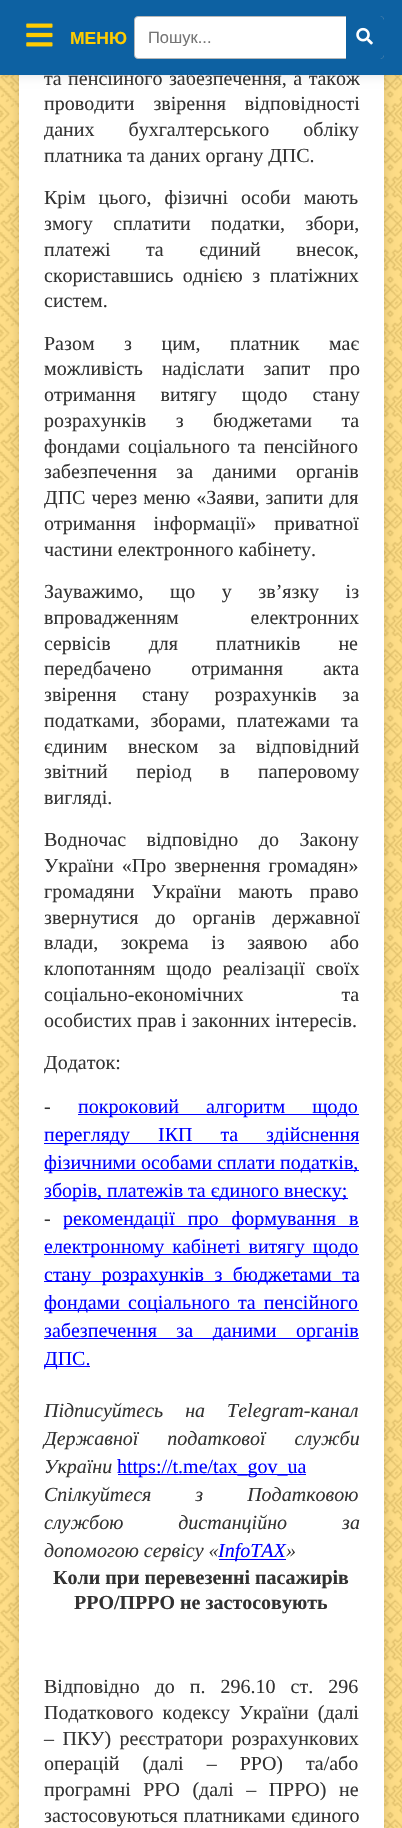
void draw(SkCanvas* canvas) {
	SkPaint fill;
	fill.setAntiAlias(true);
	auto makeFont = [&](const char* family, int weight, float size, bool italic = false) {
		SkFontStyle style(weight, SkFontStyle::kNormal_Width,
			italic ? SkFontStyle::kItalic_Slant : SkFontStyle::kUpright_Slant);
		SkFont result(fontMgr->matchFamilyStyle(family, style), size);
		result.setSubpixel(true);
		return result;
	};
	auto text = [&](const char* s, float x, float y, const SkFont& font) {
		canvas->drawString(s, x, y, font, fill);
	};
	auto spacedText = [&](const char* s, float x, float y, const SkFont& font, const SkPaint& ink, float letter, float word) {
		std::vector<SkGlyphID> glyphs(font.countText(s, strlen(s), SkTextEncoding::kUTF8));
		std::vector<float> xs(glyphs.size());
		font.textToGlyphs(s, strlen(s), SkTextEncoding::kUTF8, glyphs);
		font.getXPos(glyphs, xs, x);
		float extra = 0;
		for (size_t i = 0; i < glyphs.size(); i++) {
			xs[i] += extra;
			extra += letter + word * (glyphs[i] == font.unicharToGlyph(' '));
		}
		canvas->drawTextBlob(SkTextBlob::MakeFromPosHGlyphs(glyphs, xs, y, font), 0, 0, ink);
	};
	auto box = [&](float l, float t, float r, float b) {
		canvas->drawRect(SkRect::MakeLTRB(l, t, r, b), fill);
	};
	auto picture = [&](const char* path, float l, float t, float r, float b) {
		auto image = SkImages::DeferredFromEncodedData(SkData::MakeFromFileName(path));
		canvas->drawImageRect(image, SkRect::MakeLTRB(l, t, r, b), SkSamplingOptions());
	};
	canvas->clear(0xFFFFDA75);
	picture("image0.png", 0, 75, 402, 1828);
	fill.setColor(0x26000000);
	fill.setMaskFilter(SkMaskFilter::MakeBlur(kNormal_SkBlurStyle, 6));
	canvas->drawRoundRect(SkRect::MakeLTRB(19, -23, 384, 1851), 5, 5, fill);
	fill.setMaskFilter(nullptr);
	fill.setColor(0xFFFFFFFF);
	box(19, 75, 384, 1828);
	fill.setColor(0x1A000000);
	fill.setMaskFilter(SkMaskFilter::MakeBlur(kNormal_SkBlurStyle, 4.5f));
	canvas->drawRect(SkRect::MakeLTRB(0, 1, 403, 76), fill);
	fill.setMaskFilter(nullptr);
	fill.setColor(0xFF0000FF);
	box(78, 1114, 359, 1115);
	box(44, 1143, 359, 1144);
	box(44, 1170, 359, 1171);
	box(44, 1198, 348, 1199);
	box(64, 1226, 359, 1227);
	box(44, 1254, 359, 1255);
	box(44, 1281, 359, 1282);
	box(44, 1310, 359, 1311);
	box(44, 1338, 359, 1339);
	box(44, 1366, 90, 1367);
	box(118, 1474, 306, 1475);
	box(219, 1559, 286, 1560);
	auto font1 = makeFont("Liberation Serif", 400, 20);
	fill.setColor(0xFF333333);
	spacedText("та пенсійного забезпечення, а також", 44, 85, font1, fill, 0, 1.5f);
	fill.setColor(0xFF0D61A2);
	box(0, 0, 402, 75);
	picture("image1.png", 26, 23, 53, 47);
	auto font2 = makeFont("Liberation Sans", 700, 17.5f);
	fill.setColor(0xFFFFCC00);
	text("МЕНЮ", 70, 44, font2);
	fill.setColor(0xFF333333);
	spacedText("проводити звірення відповідності", 44, 110, font1, fill, 0, 14);
	spacedText("даних бухгалтерського обліку", 44, 136, font1, fill, 0, 29);
	text("платника та даних органу ДПС.", 44, 162, font1);
	spacedText("Крім цього, фізичні особи мають", 44, 204, font1, fill, 0, 8);
	spacedText("змогу сплатити податки, збори,", 44, 230, font1, fill, 0, 15.5f);
	spacedText("платежі та єдиний внесок,", 44, 256, font1, fill, 0, 30.5f);
	spacedText("скориставшись однією з платіжних", 44, 282, font1, fill, 0, 4.5f);
	text("систем.", 44, 307, font1);
	spacedText("Разом з цим, платник має", 44, 350, font1, fill, 0, 24.5f);
	spacedText("можливість надіслати запит про", 44, 375, font1, fill, 0, 14);
	spacedText("отримання витягу щодо стану", 44, 401, font1, fill, 0, 20);
	spacedText("розрахунків з бюджетами та", 44, 427, font1, fill, 0, 24.5f);
	spacedText("фондами соціального та пенсійного", 44, 453, font1, fill, 0, 3);
	spacedText("забезпечення за даними органів", 44, 478, font1, fill, 0, 14.5f);
	spacedText("ДПС через меню «Заяви, запити для", 44, 504, font1, fill, 0, 1);
	spacedText("отримання інформації» приватної", 44, 530, font1, fill, 0, 13);
	text("частини електронного кабінету.", 44, 556, font1);
	spacedText("Зауважимо, що у зв’язку із", 44, 598, font1, fill, 0, 21.5f);
	spacedText("впровадженням електронних", 44, 624, font1, fill, 0, 67);
	spacedText("сервісів для платників не", 44, 650, font1, fill, 0, 33);
	spacedText("передбачено отримання акта", 44, 675, font1, fill, 0, 35);
	spacedText("звірення стану розрахунків за", 44, 701, font1, fill, 0, 20.5f);
	spacedText("податками, зборами, платежами та", 44, 727, font1, fill, 0, 6);
	spacedText("єдиним внеском за відповідний", 44, 753, font1, fill, 0, 15.5f);
	spacedText("звітний період в паперовому", 44, 778, font1, fill, 0, 23.5f);
	text("вигляді.", 44, 804, font1);
	spacedText("Водночас відповідно до Закону", 44, 846, font1, fill, 0, 15.5f);
	spacedText("України «Про звернення громадян»", 44, 872, font1, fill, 0, 3);
	spacedText("громадяни України мають право", 44, 898, font1, fill, 0, 12);
	spacedText("звернутися до органів державної", 44, 924, font1, fill, 0, 12);
	spacedText("влади, зокрема із заявою або", 44, 949, font1, fill, 0, 17.5f);
	spacedText("клопотанням щодо реалізації своїх", 44, 975, font1, fill, 0, 6);
	spacedText("соціально-економічних та", 44, 1001, font1, fill, 0, 93);
	text("особистих прав і законних інтересів.", 44, 1027, font1);
	text("Додаток:", 44, 1069, font1);
	text("-", 44, 1113, font1);
	fill.setColor(0xFF0000FF);
	spacedText("покроковий алгоритм щодо", 78, 1113, font1, fill, 0, 22);
	spacedText("перегляду ІКП та здійснення", 44, 1141, font1, fill, 0, 23);
	text("фізичними особами сплати податків,", 44, 1169, font1);
	text("зборів, платежів та єдиного внеску;", 44, 1197, font1);
	fill.setColor(0xFF333333);
	text("-", 44, 1225, font1);
	fill.setColor(0xFF0000FF);
	spacedText("рекомендації про формування в", 63, 1225, font1, fill, 0, 8);
	spacedText("електронному кабінеті витягу щодо", 44, 1253, font1, fill, 0, 3);
	spacedText("стану розрахунків з бюджетами та", 44, 1281, font1, fill, 0, 5.5f);
	spacedText("фондами соціального та пенсійного", 44, 1309, font1, fill, 0, 3);
	spacedText("забезпечення за даними органів", 44, 1337, font1, fill, 0, 14.5f);
	text("ДПС.", 44, 1365, font1);
	auto font3 = makeFont("Liberation Serif", 400, 20, true);
	fill.setColor(0xFF333333);
	spacedText("Підписуйтесь на Telegram-канал", 44, 1417, font3, fill, 0, 17);
	spacedText("Державної податкової служби", 44, 1445, font3, fill, 0, 24);
	text("України", 44, 1473, font3);
	fill.setColor(0xFF0000FF);
	text("https://t.me/tax_gov_ua", 117, 1473, font1);
	fill.setColor(0xFF333333);
	spacedText("Спілкуйтеся з Податковою", 44, 1501, font3, fill, 0, 39);
	spacedText("службою дистанційно за", 44, 1529, font3, fill, 0, 50);
	text("допомогою сервісу «", 44, 1557, font3);
	fill.setColor(0xFF0000FF);
	text("InfoTAX", 218, 1557, font3);
	fill.setColor(0xFF333333);
	text("»", 286, 1557, font3);
	auto font4 = makeFont("Liberation Serif", 700, 20);
	text("Коли при перевезенні пасажирів", 53, 1584, font4);
	text("РРО/ПРРО не застосовують", 74, 1609, font4);
	spacedText("Відповідно до п. 296.10 ст. 296", 44, 1693, font1, fill, 0, 10);
	spacedText("Податкового кодексу України (далі", 44, 1719, font1, fill, 0, 4);
	spacedText("– ПКУ) реєстратори розрахункових", 44, 1745, font1, fill, 0, 3.5f);
	spacedText("операцій (далі – РРО) та/або", 44, 1770, font1, fill, 0, 18);
	spacedText("програмні РРО (далі – ПРРО) не", 44, 1796, font1, fill, 0, 7.5f);
	spacedText("застосовуються платниками єдиного", 44, 1822, font1, fill, 0, 1);
	fill.setColor(0xFFFFFFFF);
	canvas->drawRoundRect(SkRect::MakeLTRB(134.5f, 16.5f, 383.5f, 58.5f), 3.5f, 3.5f, fill);
	fill.setStyle(SkPaint::kStroke_Style);
	fill.setStrokeWidth(1);
	fill.setColor(0xFFB7B7B7);
	canvas->drawRoundRect(SkRect::MakeLTRB(134.5f, 16.5f, 383.5f, 58.5f), 3.5f, 3.5f, fill);
	canvas->save();
	canvas->clipRect(SkRect::MakeLTRB(148, 28, 333, 46));
	auto font5 = makeFont("Liberation Sans", 400, 16.5f);
	fill.setStyle(SkPaint::kFill_Style);
	fill.setColor(0xFF757575);
	text("Пошук...", 148, 43, font5);
	canvas->restore();
	fill.setColor(0xFF0D61A2);
	canvas->drawPath(SkPathBuilder().moveTo(346, 16).lineTo(380, 16).cubicTo(382, 16, 384, 18, 384, 20).lineTo(384, 55).cubicTo(384, 57, 382, 59, 380, 59).lineTo(346, 59).close().detach(), fill);
	picture("image2.png", 356, 27, 373, 45);
}
